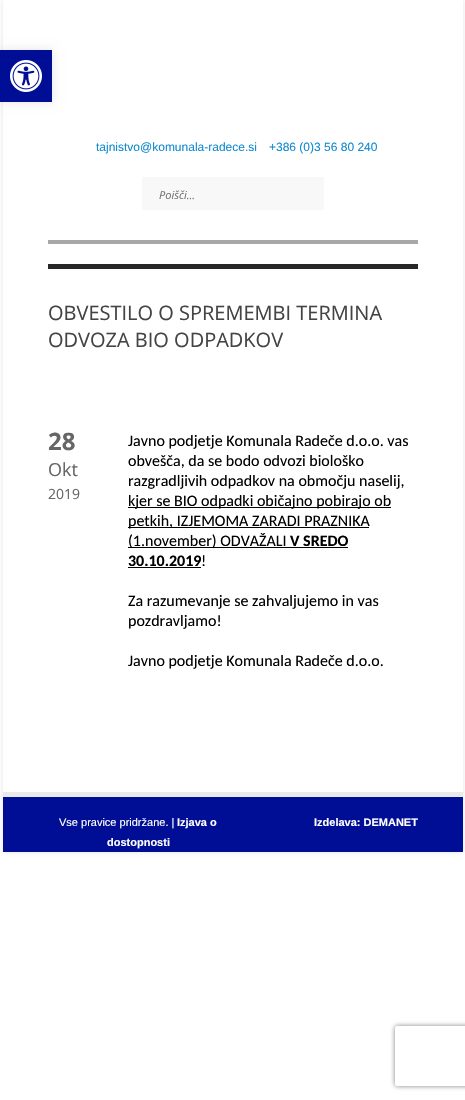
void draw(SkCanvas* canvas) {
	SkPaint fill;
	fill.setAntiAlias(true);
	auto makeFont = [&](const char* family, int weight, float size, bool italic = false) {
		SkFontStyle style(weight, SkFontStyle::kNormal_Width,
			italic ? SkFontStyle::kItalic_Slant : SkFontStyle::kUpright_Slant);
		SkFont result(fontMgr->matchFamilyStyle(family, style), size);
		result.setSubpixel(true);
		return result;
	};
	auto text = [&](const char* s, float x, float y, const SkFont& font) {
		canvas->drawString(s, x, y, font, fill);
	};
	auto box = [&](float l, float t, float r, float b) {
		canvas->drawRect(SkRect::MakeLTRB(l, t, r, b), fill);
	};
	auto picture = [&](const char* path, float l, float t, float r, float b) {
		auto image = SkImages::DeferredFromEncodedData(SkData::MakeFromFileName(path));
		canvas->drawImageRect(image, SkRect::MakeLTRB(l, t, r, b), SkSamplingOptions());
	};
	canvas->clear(0xFFFFFFFF);
	fill.setColor(0x1A000000);
	fill.setMaskFilter(SkMaskFilter::MakeBlur(kNormal_SkBlurStyle, 5));
	canvas->drawRect(SkRect::MakeLTRB(0, 50, 52, 102), fill);
	fill.setMaskFilter(nullptr);
	canvas->save();
	canvas->clipPath(SkPathBuilder(SkPathFillType::kEvenOdd).moveTo(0, 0).lineTo(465, 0).lineTo(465, 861).lineTo(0, 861).close().moveTo(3, 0).lineTo(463, 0).lineTo(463, 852).lineTo(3, 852).close().detach(), true);
	fill.setMaskFilter(SkMaskFilter::MakeBlur(kNormal_SkBlurStyle, 2.5f));
	canvas->drawRect(SkRect::MakeLTRB(3, 0, 463, 852), fill);
	fill.setMaskFilter(nullptr);
	canvas->restore();
	fill.setColor(0xFF000E95);
	box(0, 50, 52, 102);
	picture("image0.png", 10, 60, 42, 92);
	fill.setColor(0xFFF8F8F8);
	box(142, 177, 324, 210);
	fill.setColor(0xFFA8A8A8);
	box(48, 240, 418, 244);
	fill.setColor(0xFF272727);
	box(48, 264, 418, 269);
	fill.setColor(0xFF000000);
	box(128, 507, 391, 508);
	box(128, 527, 369, 528);
	box(128, 547, 348, 548);
	box(128, 567, 201, 568);
	fill.setColor(0xFFEAEAEA);
	box(3, 792, 463, 797);
	fill.setColor(0xFF000E95);
	box(3, 797, 463, 852);
	canvas->save();
	canvas->clipPath(SkPathBuilder(SkPathFillType::kEvenOdd).moveTo(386, 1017).lineTo(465, 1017).lineTo(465, 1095).lineTo(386, 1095).close().moveTo(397, 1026).lineTo(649, 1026).cubicTo(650, 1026, 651, 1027, 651, 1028).lineTo(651, 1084).cubicTo(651, 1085, 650, 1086, 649, 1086).lineTo(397, 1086).cubicTo(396, 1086, 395, 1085, 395, 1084).lineTo(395, 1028).cubicTo(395, 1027, 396, 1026, 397, 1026).close().detach(), true);
	fill.setColor(0xFF808080);
	fill.setMaskFilter(SkMaskFilter::MakeBlur(kNormal_SkBlurStyle, 2.5f));
	canvas->drawRoundRect(SkRect::MakeLTRB(395, 1026, 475, 1086), 2, 2, fill);
	fill.setMaskFilter(nullptr);
	canvas->restore();
	auto font1 = makeFont("Liberation Sans", 400, 12);
	fill.setColor(0xFF118AD0);
	text("tajnistvo@komunala-radece.si", 96, 151, font1);
	text("+386 (0)3 56 80 240", 269, 151, font1);
	auto font2 = makeFont("Open Sans", 400, 11, true);
	fill.setColor(0xFF757575);
	text("Poišči...", 159, 199, font2);
	auto font3 = makeFont("Open Sans", 400, 20);
	fill.setColor(0xFF444444);
	text("OBVESTILO O SPREMEMBI TERMINA", 48, 320, font3);
	text("ODVOZA BIO ODPADKOV", 48, 347, font3);
	auto font4 = makeFont("Open Sans", 700, 24);
	fill.setColor(0xFF666666);
	text("28", 48, 450, font4);
	auto font5 = makeFont("Open Sans", 400, 18);
	text("Okt", 48, 476, font5);
	auto font6 = makeFont("Open Sans", 400, 14);
	text("2019", 48, 499, font6);
	auto font7 = makeFont("Carlito", 400, 16);
	fill.setColor(0xFF000000);
	text("Javno podjetje Komunala Radeče d.o.o. vas", 128, 446, font7);
	text("obvešča, da se bodo odvozi biološko", 128, 466, font7);
	text("razgradljivih odpadkov na območju naselij,", 128, 486, font7);
	text("kjer se BIO odpadki običajno pobirajo ob", 128, 506, font7);
	text("petkih, IZJEMOMA ZARADI PRAZNIKA", 128, 526, font7);
	text("(1.november) ODVAŽALI", 128, 546, font7);
	auto font8 = makeFont("Carlito", 700, 16);
	text("V SREDO", 290, 546, font8);
	text("30.10.2019", 128, 566, font8);
	text("!", 201, 566, font7);
	text("Za razumevanje se zahvaljujemo in vas", 128, 606, font7);
	text("pozdravljamo!", 128, 626, font7);
	text("Javno podjetje Komunala Radeče d.o.o.", 128, 666, font7);
	auto font9 = makeFont("Liberation Sans", 400, 11);
	fill.setColor(0xFFFFFFFF);
	text("Vse pravice pridržane. |", 59, 826, font9);
	auto font10 = makeFont("Liberation Sans", 700, 11);
	text("Izjava o", 177, 826, font10);
	text("dostopnosti", 107, 846, font10);
	text("Izdelava: DEMANET", 314, 826, font10);
}
